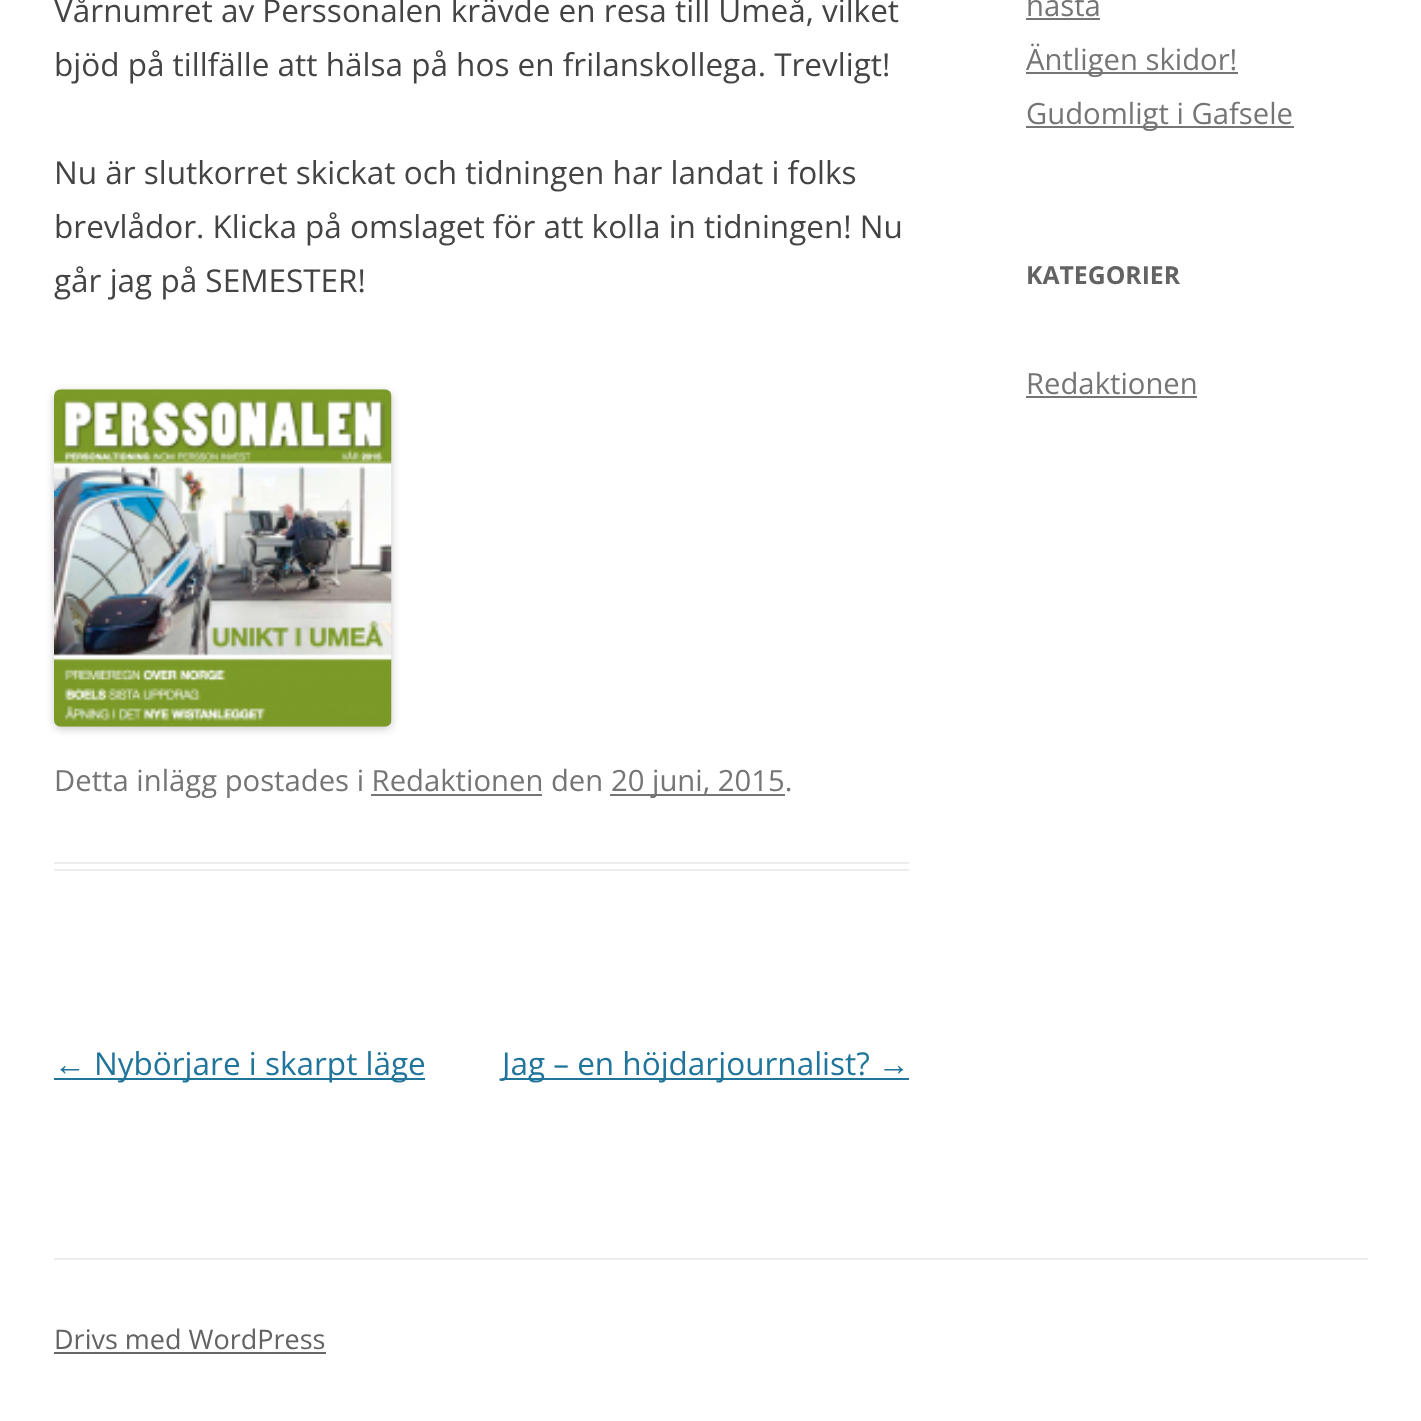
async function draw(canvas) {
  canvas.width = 1421;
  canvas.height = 1421;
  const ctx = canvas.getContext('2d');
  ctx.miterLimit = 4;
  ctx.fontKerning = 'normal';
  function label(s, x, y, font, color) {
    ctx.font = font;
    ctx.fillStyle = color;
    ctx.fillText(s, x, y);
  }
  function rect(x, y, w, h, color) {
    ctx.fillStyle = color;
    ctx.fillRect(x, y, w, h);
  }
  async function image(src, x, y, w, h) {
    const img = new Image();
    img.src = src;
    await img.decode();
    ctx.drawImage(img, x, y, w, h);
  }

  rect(0, 0, 1421, 1421, '#fff');
  rect(54, 862, 855, 2, '#ededed');
  rect(54, 869, 855, 2, '#ededed');
  label('Vårnumret av Perssonalen krävde en resa till Umeå, vilket', 54, 22, '31.5px Open Sans', '#444');
  label('bjöd på tillfälle att hälsa på hos en frilanskollega. Trevligt!', 54, 76, '31.5px Open Sans', '#444');
  label('Nu är slutkorret skickat och tidningen har landat i folks', 54, 184, '31.5px Open Sans', '#444');
  label('brevlådor. Klicka på omslaget för att kolla in tidningen! Nu', 54, 238, '31.5px Open Sans', '#444');
  label('går jag på SEMESTER!', 54, 292, '31.5px Open Sans', '#444');
  ctx.fillStyle = '#00000033';
  ctx.filter = 'blur(4.5px)';
  ctx.beginPath();
  ctx.roundRect(54, 392, 338, 337, 7);
  ctx.fill();
  ctx.filter = 'none';
  await image('assets/img1.png', 54, 389, 338, 338);
  label('Detta inlägg postades i Redaktionen den', 54, 791, '29.25px Open Sans', '#757575');
  rect(610, 794, 175, 2, '#757575');
  label('20 juni, 2015.', 611, 791, '29.25px Open Sans', '#757575');
  rect(371, 794, 171, 2, '#757575');
  label('←', 54, 1075, '31.5px Liberation Sans', '#21759b');
  rect(54, 1078, 371, 2, '#21759b');
  label('Nybörjare i skarpt läge', 94, 1075, '31.5px Open Sans', '#21759b');
  rect(502, 1078, 407, 2, '#21759b');
  label('Jag – en höjdarjournalist?', 502, 1075, '31.5px Open Sans', '#21759b');
  label('→', 878, 1075, '31.5px Liberation Sans', '#21759b');
  label('hasta', 1026, 16, '29.25px Open Sans', '#757575');
  rect(1026, 18, 74, 2, '#757575');
  rect(1026, 72, 212, 2, '#757575');
  label('Äntligen skidor!', 1026, 70, '29.25px Open Sans', '#757575');
  rect(1026, 126, 268, 2, '#757575');
  label('Gudomligt i Gafsele', 1026, 124, '29.25px Open Sans', '#757575');
  label('KATEGORIER', 1026, 284, 'bold 24.75px Open Sans', '#636363');
  label('Redaktionen', 1026, 394, '29.25px Open Sans', '#757575');
  rect(1026, 396, 171, 2, '#757575');
  rect(54, 1258, 1314, 2, '#ededed');
  label('Drivs med WordPress', 54, 1349, '27px Open Sans', '#636363');
  rect(54, 1352, 272, 2, '#686868');
}

draw(document.querySelector('canvas'));
